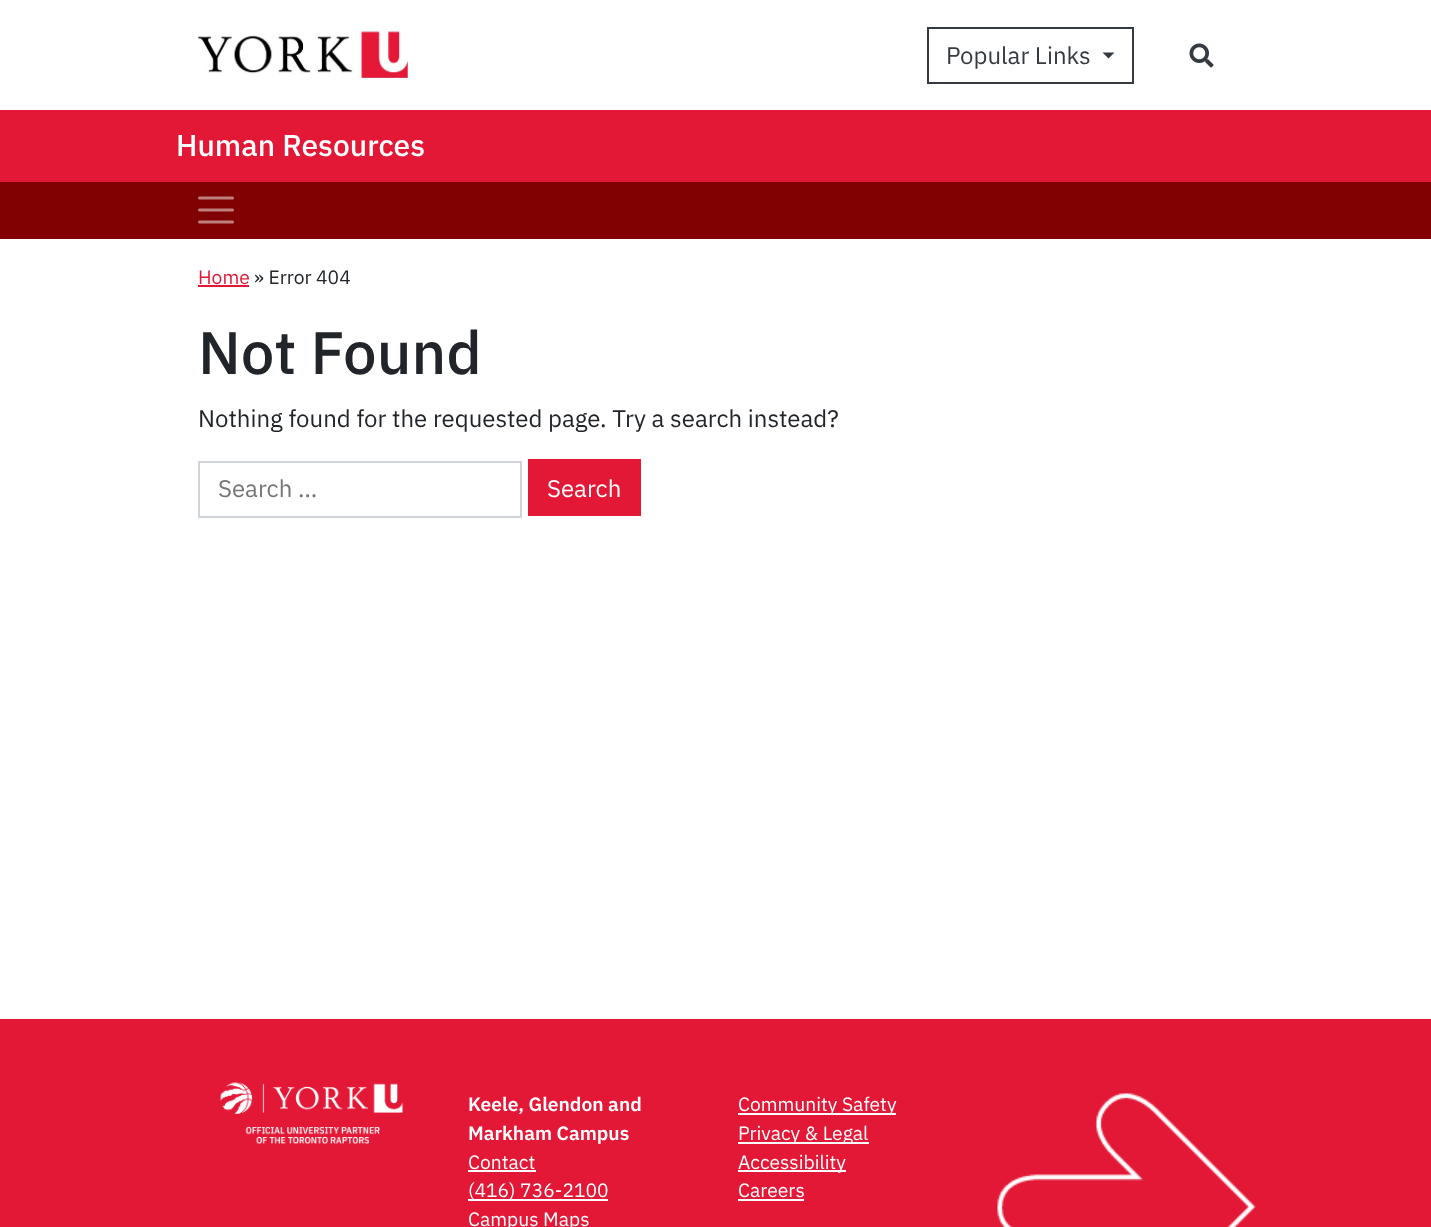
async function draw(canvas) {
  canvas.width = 1431;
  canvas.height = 1227;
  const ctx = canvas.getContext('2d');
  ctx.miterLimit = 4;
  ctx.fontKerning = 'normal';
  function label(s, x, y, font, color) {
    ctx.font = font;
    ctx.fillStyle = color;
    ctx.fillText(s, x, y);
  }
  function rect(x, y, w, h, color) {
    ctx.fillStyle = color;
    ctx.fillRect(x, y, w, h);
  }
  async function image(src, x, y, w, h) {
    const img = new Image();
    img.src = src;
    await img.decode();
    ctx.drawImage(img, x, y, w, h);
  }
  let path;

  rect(0, 0, 1431, 1227, '#fff');
  await image('assets/img1.png', 198, 31, 210, 47);
  ctx.strokeStyle = '#343a40';
  ctx.lineWidth = 2;
  ctx.strokeRect(928, 28, 205, 55);
  label('Popular Links', 946, 64, '24px IBM Plex Sans', '#343a40');
  path = new Path2D('M1102.5 52.5H1114.5L1108.5 58.5Z');
  ctx.fill(path);
  await image('assets/img2.png', 1189, 43, 25, 25);
  rect(0, 110, 1431, 72, '#e31837');
  label('Human Resources', 176, 156, '500 30px IBM Plex Sans', '#fff');
  rect(0, 182, 1431, 57, '#810001');
  path = new Path2D('M199.5 198H232.5M199.5 210H232.5M199.5 222H232.5');
  ctx.strokeStyle = '#c08080';
  ctx.lineWidth = 3;
  ctx.lineCap = 'round';
  ctx.stroke(path);
  label('Home', 198, 284, '19.25px IBM Plex Sans', '#e31837');
  rect(198, 285, 51, 2, '#e31837');
  label('» Error 404', 254, 284, '19.25px IBM Plex Sans', '#212529');
  label('Not Found', 198, 374, '500 60px IBM Plex Sans', '#212529');
  label('Nothing found for the requested page. Try a search instead?', 198, 427, '24px IBM Plex Sans', '#212529');
  ctx.strokeStyle = '#ced4da';
  ctx.lineWidth = 2;
  ctx.strokeRect(199, 462, 322, 55);
  label('Search …', 218, 497, '24px IBM Plex Sans', '#757575');
  rect(528, 459, 113, 57, '#e31837');
  label('Search', 547, 497, '24px IBM Plex Sans', '#fff');
  rect(0, 1019, 1431, 208, '#e31837');
  await image('assets/img3.png', 997, 1093, 259, 134);
  await image('assets/img4.png', 220, 1082, 184, 63);
  label('Keele, Glendon and', 468, 1111, '600 19.25px IBM Plex Sans', '#fff');
  label('Markham Campus', 468, 1140, '600 19.25px IBM Plex Sans', '#fff');
  label('Contact', 468, 1169, '19.25px IBM Plex Sans', '#fff');
  rect(468, 1170, 68, 2, '#fff');
  rect(468, 1199, 140, 2, '#fff');
  label('(416) 736-2100', 468, 1197, '19.25px IBM Plex Sans', '#fff');
  label('Campus Maps', 468, 1226, '19.25px IBM Plex Sans', '#fff');
  rect(738, 1113, 158, 2, '#fff');
  label('Community Safety', 738, 1111, '19.25px IBM Plex Sans', '#fff');
  rect(738, 1142, 131, 2, '#fff');
  label('Privacy & Legal', 738, 1140, '19.25px IBM Plex Sans', '#fff');
  rect(738, 1170, 108, 2, '#fff');
  label('Accessibility', 738, 1169, '19.25px IBM Plex Sans', '#fff');
  label('Careers', 738, 1197, '19.25px IBM Plex Sans', '#fff');
  rect(738, 1199, 66, 2, '#fff');
}

draw(document.querySelector('canvas'));
